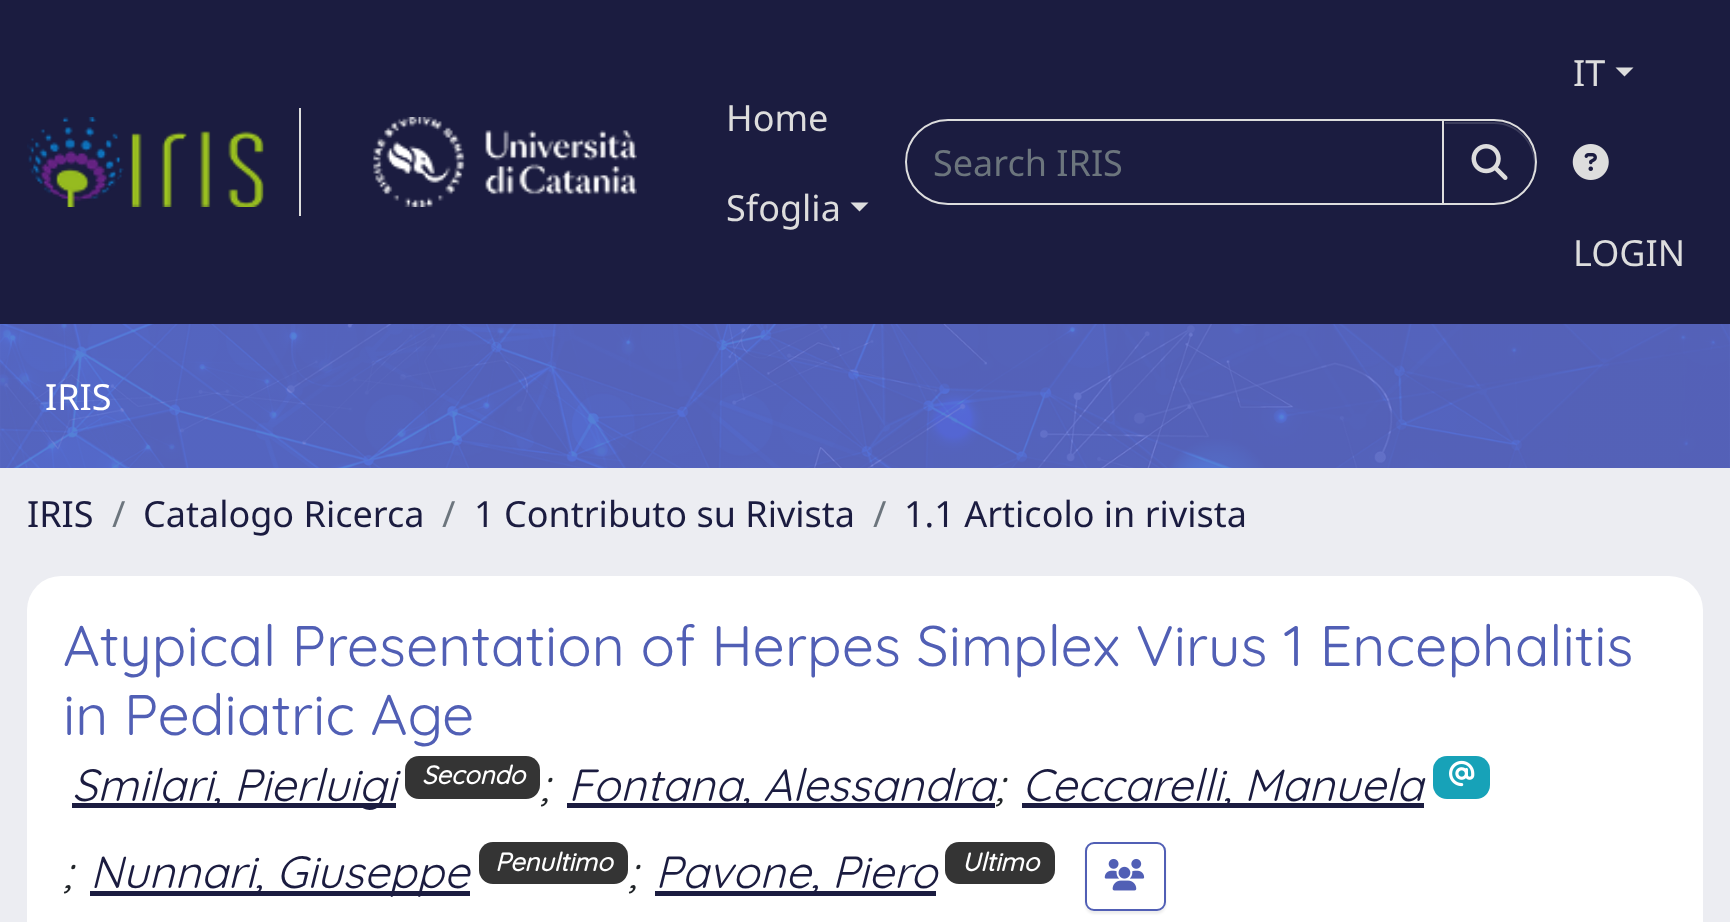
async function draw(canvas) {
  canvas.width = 1730;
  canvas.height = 922;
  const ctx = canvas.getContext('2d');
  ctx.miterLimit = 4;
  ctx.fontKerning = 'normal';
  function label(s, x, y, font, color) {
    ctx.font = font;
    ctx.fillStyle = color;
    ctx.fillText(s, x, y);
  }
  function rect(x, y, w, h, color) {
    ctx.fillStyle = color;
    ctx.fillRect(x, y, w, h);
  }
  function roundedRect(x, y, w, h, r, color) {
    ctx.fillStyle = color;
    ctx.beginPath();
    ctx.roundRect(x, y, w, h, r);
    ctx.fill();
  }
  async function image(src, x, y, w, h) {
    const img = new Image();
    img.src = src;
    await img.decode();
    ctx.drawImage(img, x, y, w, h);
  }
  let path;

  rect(0, 0, 1730, 922, '#ecedf2');
  rect(0, 0, 1730, 324, '#1b1c40');
  rect(299, 108, 2, 108, '#ddd');
  await image('assets/img1.png', 27, 117, 237, 90);
  await image('assets/img2.png', 373, 117, 264, 90);
  label('Home', 726, 131, '36px Noto Sans', '#ddd');
  label('Sfoglia', 726, 221, '36px Noto Sans', '#ddd');
  path = new Path2D('M850.5 202.5H868.5L859.5 211.5Z');
  ctx.fill(path);
  ctx.beginPath();
  ctx.roundRect(906, 120, 538, 84, [42, 0, 0, 42]);
  ctx.strokeStyle = '#ddd';
  ctx.lineWidth = 2;
  ctx.stroke();
  label('Search IRIS', 933, 176, '36px Noto Sans', '#6c757d');
  ctx.fillStyle = '#00000012';
  ctx.filter = 'blur(1px)';
  ctx.beginPath();
  ctx.roundRect(1442, 122, 95, 85, 42.5);
  ctx.fill();
  ctx.filter = 'none';
  ctx.fillStyle = '#1b1c40';
  ctx.beginPath();
  ctx.roundRect(1442, 119, 95, 86, [0, 43, 43, 0]);
  ctx.fill();
  ctx.fillStyle = '#3d3e5d';
  path = new Path2D('M1445 122V124H1494C1516 124 1534 142 1534 164C1534 170 1533 177 1530 182C1545 156 1525 122 1494 122Z');
  ctx.fill(path);
  ctx.beginPath();
  ctx.roundRect(1443, 120, 93, 84, [0, 42, 42, 0]);
  ctx.stroke();
  await image('assets/img3.png', 1471, 144, 37, 36);
  label('IT', 1573, 86, '36px Noto Sans', '#ddd');
  path = new Path2D('M1615.5 67.5H1633.5L1624.5 76.5Z');
  ctx.fill(path);
  await image('assets/img4.png', 1572, 144, 37, 36);
  label('LOGIN', 1573, 266, '36px Noto Sans', '#ddd');
  await image('assets/img5.png', 0, 324, 1730, 144);
  label('IRIS', 45, 410, '36px Noto Sans', '#fff');
  label('IRIS', 27, 527, '36px Noto Sans', '#1b1c40');
  label('/', 112, 527, '36px Noto Sans', '#6c757d');
  label('Catalogo Ricerca', 143, 527, '36px Noto Sans', '#1b1c40');
  label('/', 442, 527, '36px Noto Sans', '#6c757d');
  label('1 Contributo su Rivista', 474, 527, '36px Noto Sans', '#1b1c40');
  label('/', 873, 527, '36px Noto Sans', '#6c757d');
  label('1.1 Articolo in rivista', 904, 527, '36px Noto Sans', '#1b1c40');
  roundedRect(27, 576, 1676, 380, 34, '#fff');
  label('Atypical Presentation of Herpes Simplex Virus 1 Encephalitis', 63, 666, '57.2px Quicksand', '#515fb5');
  label('in Pediatric Age', 63, 735, '57.2px Quicksand', '#515fb5');
  rect(72, 803, 324, 5, '#1b1c40');
  label('Smilari, Pierluigi', 72, 801, 'italic 45px Quicksand', '#1b1c40');
  roundedRect(405, 756, 135, 43, 14, '#343434');
  label('Secondo', 422, 784, 'italic bold 25.5px Quicksand', '#fff');
  label(';', 540, 801, 'italic 45px Quicksand', '#212529');
  rect(1022, 803, 402, 5, '#1b1c40');
  label('Ceccarelli, Manuela', 1022, 801, 'italic 45px Quicksand', '#1b1c40');
  roundedRect(1433, 756, 57, 43, 14, '#17a2b8');
  await image('assets/img6.png', 1449, 760, 26, 27);
  label(';', 63, 888, 'italic 45px Quicksand', '#212529');
  rect(567, 803, 428, 5, '#1b1c40');
  label('Fontana, Alessandra', 568, 801, 'italic 45px Quicksand', '#1b1c40');
  label(';', 995, 801, 'italic 45px Quicksand', '#212529');
  rect(90, 891, 380, 5, '#1b1c40');
  label('Nunnari, Giuseppe', 90, 888, 'italic 45px Quicksand', '#1b1c40');
  roundedRect(479, 842, 149, 42, 14, '#343434');
  label('Penultimo', 495, 871, 'italic bold 25.5px Quicksand', '#fff');
  label(';', 628, 888, 'italic 45px Quicksand', '#212529');
  rect(655, 891, 281, 5, '#1b1c40');
  label('Pavone, Piero', 655, 888, 'italic 45px Quicksand', '#1b1c40');
  roundedRect(945, 842, 110, 42, 14, '#343434');
  label('Ultimo', 962, 871, 'italic bold 25.5px Quicksand', '#fff');
  ctx.save();
  path = new Path2D('M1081 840H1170V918H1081ZM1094 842H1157C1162 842 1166 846 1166 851V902C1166 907 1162 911 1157 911H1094C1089 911 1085 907 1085 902V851C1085 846 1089 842 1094 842Z');
  ctx.clip(path, 'evenodd');
  ctx.fillStyle = '#00000012';
  ctx.filter = 'blur(1px)';
  ctx.beginPath();
  ctx.roundRect(1085, 844, 81, 70, 9);
  ctx.fill();
  ctx.filter = 'none';
  ctx.restore();
  ctx.beginPath();
  ctx.roundRect(1086, 843, 79, 67, 8);
  ctx.strokeStyle = '#515fb5';
  ctx.stroke();
  await image('assets/img7.png', 1104, 858, 41, 33);
}

draw(document.querySelector('canvas'));
